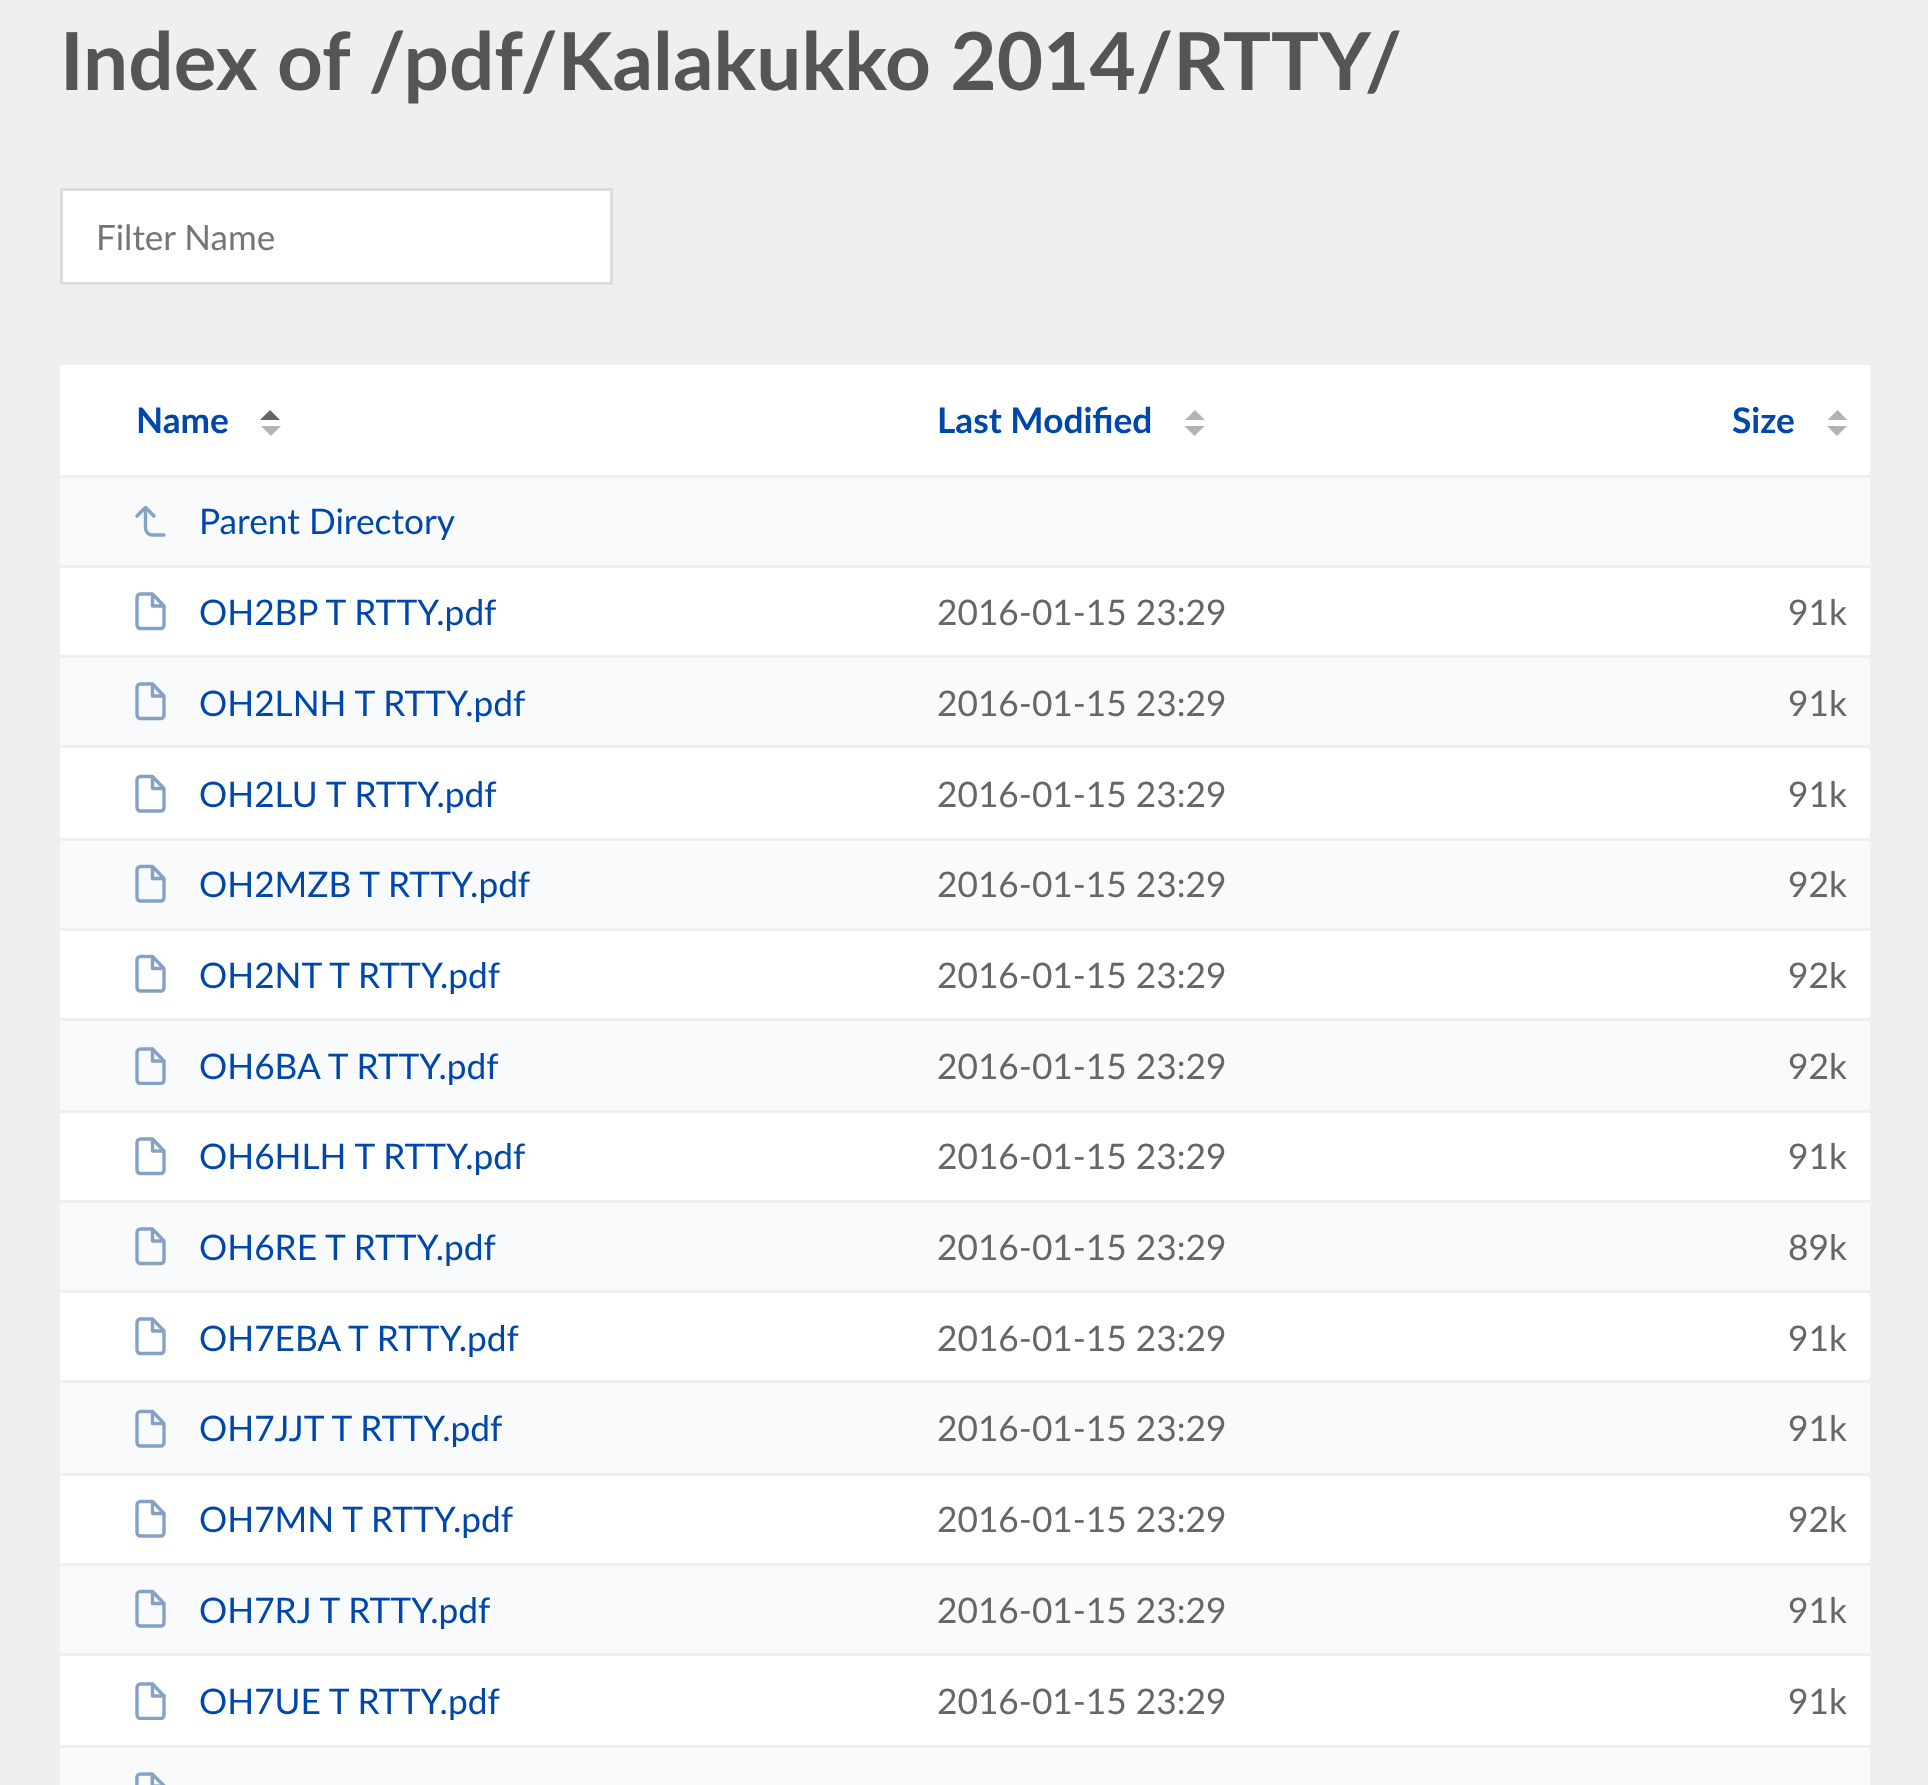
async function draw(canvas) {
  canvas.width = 1928;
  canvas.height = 1785;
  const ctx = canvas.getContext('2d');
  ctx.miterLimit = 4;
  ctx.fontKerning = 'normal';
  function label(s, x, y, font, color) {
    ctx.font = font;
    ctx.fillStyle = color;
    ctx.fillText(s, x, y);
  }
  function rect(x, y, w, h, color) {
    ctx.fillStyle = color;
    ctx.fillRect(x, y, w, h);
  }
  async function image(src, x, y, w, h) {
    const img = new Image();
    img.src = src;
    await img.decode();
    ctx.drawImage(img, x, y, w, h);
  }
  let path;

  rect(0, 0, 1928, 1785, '#edeff0');
  label('Index of /pdf/Kalakukko 2014/RTTY/', 60, 90, 'bold 80px Lato', '#555');
  ctx.fillStyle = '#fff';
  ctx.beginPath();
  ctx.rect(61.5, 189.5, 550, 94);
  ctx.fill();
  ctx.strokeStyle = '#ddd';
  ctx.lineWidth = 3;
  ctx.stroke();
  label('Filter Name', 96, 250, '35px Lato', '#757575');
  rect(60, 365, 1810, 1380, '#fff');
  label('Name', 136, 433, 'bold 35.25px Lato', '#0047ab');
  ctx.fillStyle = '#666';
  path = new Path2D('M280 420H260L270 410Z');
  ctx.fill(path);
  ctx.fillStyle = '#b3b3b3';
  path = new Path2D('M261 426H281L271 436Z');
  ctx.fill(path);
  label('Last Modified', 937, 433, 'bold 35.25px Lato', '#0047ab');
  ctx.fillStyle = '#b3b3b3';
  path = new Path2D('M1205 420H1185L1195 410ZM1184.5 426H1204.5L1194.5 436Z');
  ctx.fill(path);
  label('Size', 1732, 433, 'bold 35.25px Lato', '#0047ab');
  ctx.fillStyle = '#b3b3b3';
  path = new Path2D('M1847.5 420H1827.5L1837.5 410ZM1827 426H1847L1837 436Z');
  ctx.fill(path);
  rect(60, 478, 1810, 87, '#f8fafb');
  rect(60, 475, 1810, 3, '#edeff0');
  rect(60, 565, 1810, 3, '#edeff0');
  path = new Path2D('M154 516L145.5 507.5L137 516M164 535H152.5C148.5 535 145.5 532 145.5 528V507.5');
  ctx.strokeStyle = '#86a1c6';
  ctx.lineWidth = 3.4;
  ctx.lineCap = 'round';
  ctx.lineJoin = 'round';
  ctx.stroke(path);
  label('Parent Directory', 199, 534, '35.25px Lato', '#0047ab');
  path = new Path2D('M152.5 594H140.5C138.5 594 137 595.5 137 597.5V625C137 627 138.5 628.5 140.5 628.5H161C162.5 628.5 164 627 164 625V606ZM152.5 594V606H164');
  ctx.stroke(path);
  label('OH2BP T RTTY.pdf', 199, 625, '35.25px Lato', '#0047ab');
  label('2016-01-15 23:29', 937, 625, '35.25px Lato', '#666');
  label('91k', 1788, 625, '35.25px Lato', '#666');
  rect(60, 658, 1810, 87, '#f8fafb');
  rect(60, 655, 1810, 3, '#edeff0');
  rect(60, 745, 1810, 3, '#edeff0');
  path = new Path2D('M152.5 684H140.5C138.5 684 137 685.5 137 687.5V715C137 717 138.5 718.5 140.5 718.5H161C162.5 718.5 164 717 164 715V696ZM152.5 684V696H164');
  ctx.stroke(path);
  label('OH2LNH T RTTY.pdf', 199, 716, '35.25px Lato', '#0047ab');
  label('2016-01-15 23:29', 937, 716, '35.25px Lato', '#666');
  label('91k', 1788, 716, '35.25px Lato', '#666');
  path = new Path2D('M152.5 776.5H140.5C138.5 776.5 137 778 137 780V807.5C137 809.5 138.5 811 140.5 811H161C162.5 811 164 809.5 164 807.5V788.5ZM152.5 776.5V788.5H164');
  ctx.stroke(path);
  label('OH2LU T RTTY.pdf', 199, 807, '35.25px Lato', '#0047ab');
  label('2016-01-15 23:29', 937, 807, '35.25px Lato', '#666');
  label('91k', 1788, 807, '35.25px Lato', '#666');
  rect(60, 841, 1810, 87, '#f8fafb');
  rect(60, 838, 1810, 3, '#edeff0');
  rect(60, 928, 1810, 3, '#edeff0');
  path = new Path2D('M152.5 866.5H140.5C138.5 866.5 137 868 137 870V897.5C137 899.5 138.5 901 140.5 901H161C162.5 901 164 899.5 164 897.5V878.5ZM152.5 866.5V878.5H164');
  ctx.stroke(path);
  label('OH2MZB T RTTY.pdf', 199, 897, '35.25px Lato', '#0047ab');
  label('2016-01-15 23:29', 937, 897, '35.25px Lato', '#666');
  label('92k', 1788, 897, '35.25px Lato', '#666');
  path = new Path2D('M152.5 956.5H140.5C138.5 956.5 137 958 137 960V987.5C137 989.5 138.5 991 140.5 991H161C162.5 991 164 989.5 164 987.5V968.5ZM152.5 956.5V968.5H164');
  ctx.stroke(path);
  label('OH2NT T RTTY.pdf', 199, 988, '35.25px Lato', '#0047ab');
  label('2016-01-15 23:29', 937, 988, '35.25px Lato', '#666');
  label('92k', 1788, 988, '35.25px Lato', '#666');
  rect(60, 1021, 1810, 89, '#f8fafb');
  rect(60, 1018, 1810, 3, '#edeff0');
  rect(60, 1110, 1810, 3, '#edeff0');
  ctx.save();
  ctx.beginPath();
  ctx.rect(130, 1045, 43, 40);
  ctx.clip();
  path = new Path2D('M152.5 1049H140.5C138.5 1049 137 1050.5 137 1052.5V1080C137 1082 138.5 1083.5 140.5 1083.5H161C162.5 1083.5 164 1082 164 1080V1061Z');
  ctx.stroke(path);
  ctx.restore();
  path = new Path2D('M152.5 1049V1061H164');
  ctx.stroke(path);
  ctx.save();
  ctx.beginPath();
  ctx.rect(130, 1043, 763, 42);
  ctx.clip();
  label('OH6BA T RTTY.pdf', 199, 1079, '35.25px Lato', '#0047ab');
  ctx.restore();
  label('2016-01-15 23:29', 937, 1079, '35.25px Lato', '#666');
  label('92k', 1788, 1079, '35.25px Lato', '#666');
  path = new Path2D('M152.5 1139H140.5C138.5 1139 137 1140.5 137 1142.5V1170C137 1172 138.5 1173.5 140.5 1173.5H161C162.5 1173.5 164 1172 164 1170V1151ZM152.5 1139V1151H164');
  ctx.stroke(path);
  label('OH6HLH T RTTY.pdf', 199, 1169, '35.25px Lato', '#0047ab');
  label('2016-01-15 23:29', 937, 1169, '35.25px Lato', '#666');
  label('91k', 1788, 1169, '35.25px Lato', '#666');
  rect(60, 1203, 1810, 87, '#f8fafb');
  rect(60, 1200, 1810, 3, '#edeff0');
  rect(60, 1290, 1810, 3, '#edeff0');
  path = new Path2D('M152.5 1229H140.5C138.5 1229 137 1230.5 137 1232.5V1260C137 1262 138.5 1263.5 140.5 1263.5H161C162.5 1263.5 164 1262 164 1260V1241ZM152.5 1229V1241H164');
  ctx.stroke(path);
  label('OH6RE T RTTY.pdf', 199, 1260, '35.25px Lato', '#0047ab');
  label('2016-01-15 23:29', 937, 1260, '35.25px Lato', '#666');
  label('89k', 1788, 1260, '35.25px Lato', '#666');
  path = new Path2D('M152.5 1319H140.5C138.5 1319 137 1320.5 137 1322.5V1350C137 1352 138.5 1353.5 140.5 1353.5H161C162.5 1353.5 164 1352 164 1350V1331ZM152.5 1319V1331H164');
  ctx.stroke(path);
  label('OH7EBA T RTTY.pdf', 199, 1351, '35.25px Lato', '#0047ab');
  label('2016-01-15 23:29', 937, 1351, '35.25px Lato', '#666');
  label('91k', 1788, 1351, '35.25px Lato', '#666');
  rect(60, 1383, 1810, 90, '#f8fafb');
  rect(60, 1380, 1810, 3, '#edeff0');
  rect(60, 1473, 1810, 3, '#edeff0');
  path = new Path2D('M152.5 1411.5H140.5C138.5 1411.5 137 1413 137 1415V1442.5C137 1444.5 138.5 1446 140.5 1446H161C162.5 1446 164 1444.5 164 1442.5V1423.5ZM152.5 1411.5V1423.5H164');
  ctx.stroke(path);
  label('OH7JJT T RTTY.pdf', 199, 1441, '35.25px Lato', '#0047ab');
  label('2016-01-15 23:29', 937, 1441, '35.25px Lato', '#666');
  label('91k', 1788, 1441, '35.25px Lato', '#666');
  path = new Path2D('M152.5 1501.5H140.5C138.5 1501.5 137 1503 137 1505V1532.5C137 1534.5 138.5 1536 140.5 1536H161C162.5 1536 164 1534.5 164 1532.5V1513.5ZM152.5 1501.5V1513.5H164');
  ctx.stroke(path);
  label('OH7MN T RTTY.pdf', 199, 1532, '35.25px Lato', '#0047ab');
  label('2016-01-15 23:29', 937, 1532, '35.25px Lato', '#666');
  label('92k', 1788, 1532, '35.25px Lato', '#666');
  rect(60, 1566, 1810, 87, '#f8fafb');
  rect(60, 1563, 1810, 3, '#edeff0');
  rect(60, 1653, 1810, 3, '#edeff0');
  path = new Path2D('M152.5 1591.5H140.5C138.5 1591.5 137 1593 137 1595V1622.5C137 1624.5 138.5 1626 140.5 1626H161C162.5 1626 164 1624.5 164 1622.5V1603.5ZM152.5 1591.5V1603.5H164');
  ctx.stroke(path);
  label('OH7RJ T RTTY.pdf', 199, 1623, '35.25px Lato', '#0047ab');
  label('2016-01-15 23:29', 937, 1623, '35.25px Lato', '#666');
  label('91k', 1788, 1623, '35.25px Lato', '#666');
  ctx.save();
  ctx.beginPath();
  ctx.rect(130, 1680, 43, 40);
  ctx.clip();
  path = new Path2D('M152.5 1684H140.5C138.5 1684 137 1685.5 137 1687.5V1715C137 1717 138.5 1718.5 140.5 1718.5H161C162.5 1718.5 164 1717 164 1715V1696Z');
  ctx.stroke(path);
  ctx.restore();
  path = new Path2D('M152.5 1684V1696H164');
  ctx.stroke(path);
  ctx.save();
  ctx.beginPath();
  ctx.rect(130, 1678, 763, 42);
  ctx.clip();
  label('OH7UE T RTTY.pdf', 199, 1714, '35.25px Lato', '#0047ab');
  ctx.restore();
  label('2016-01-15 23:29', 937, 1714, '35.25px Lato', '#666');
  label('91k', 1788, 1714, '35.25px Lato', '#666');
  rect(60, 1748, 1810, 37, '#f8fafb');
  await image('assets/img1.png', 135, 1772, 31, 13);
}

draw(document.querySelector('canvas'));
